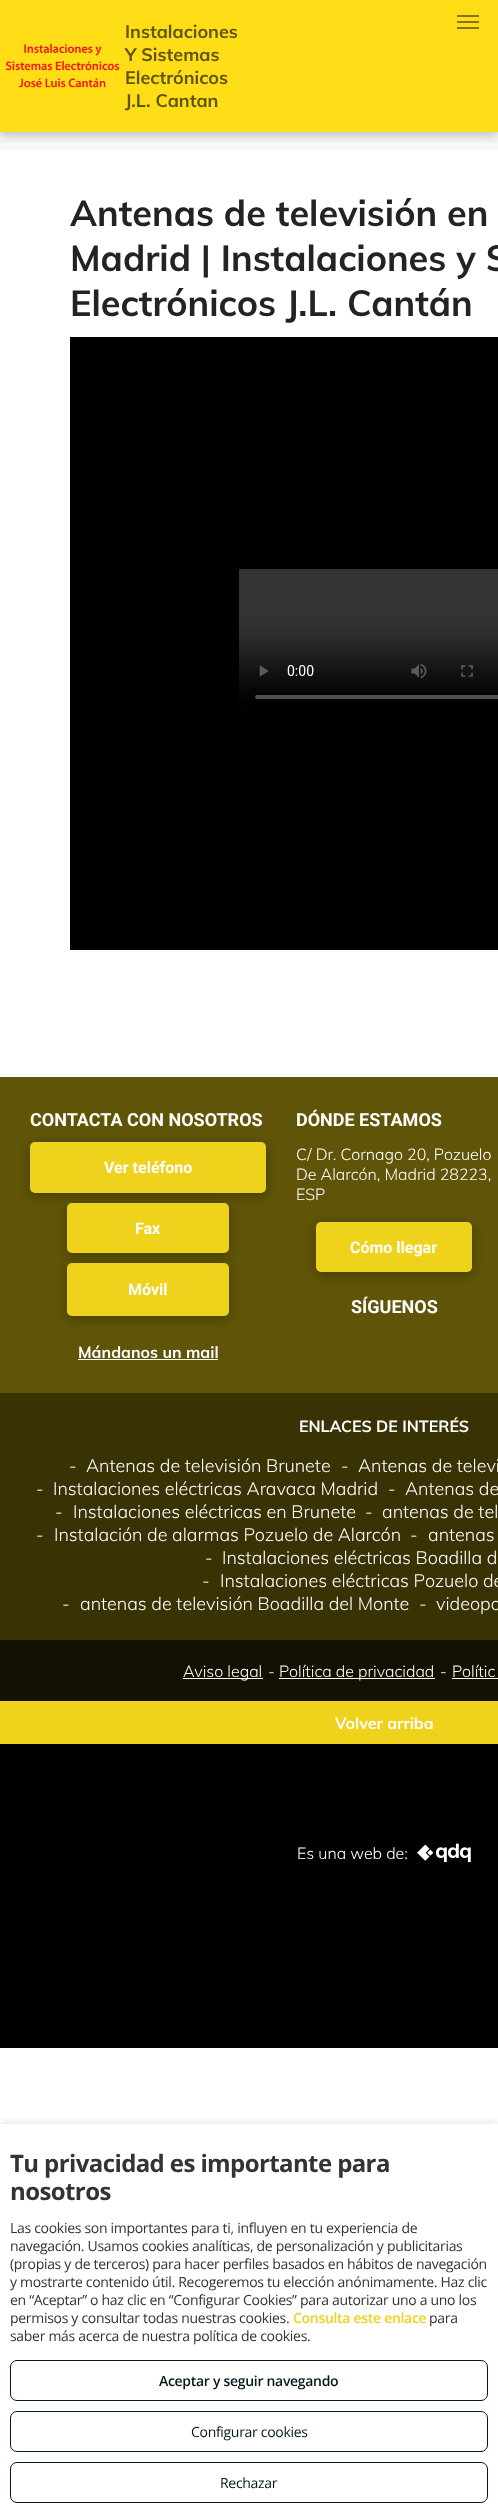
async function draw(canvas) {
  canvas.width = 498;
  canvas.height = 2518;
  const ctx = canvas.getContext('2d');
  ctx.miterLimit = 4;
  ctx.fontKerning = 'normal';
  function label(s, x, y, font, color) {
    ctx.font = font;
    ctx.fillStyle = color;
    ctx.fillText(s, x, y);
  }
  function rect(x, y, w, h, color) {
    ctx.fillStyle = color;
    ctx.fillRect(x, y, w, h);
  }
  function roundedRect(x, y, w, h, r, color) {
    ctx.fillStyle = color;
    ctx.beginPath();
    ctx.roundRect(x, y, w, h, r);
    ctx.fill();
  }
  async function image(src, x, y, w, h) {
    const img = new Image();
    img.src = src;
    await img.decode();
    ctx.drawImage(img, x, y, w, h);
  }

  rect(0, 0, 498, 2518, '#fff');
  rect(0, 0, 498, 132, '#ffdd17');
  rect(0, 132, 498, 18, '#f7f7f7');
  ctx.save();
  ctx.beginPath();
  ctx.rect(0, 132, 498, 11);
  ctx.clip();
  ctx.fillStyle = '#00000040';
  ctx.filter = 'blur(5.5px)';
  ctx.beginPath();
  ctx.rect(0, 3, 498, 132);
  ctx.fill();
  ctx.filter = 'none';
  ctx.restore();
  rect(457, 15, 22, 2, '#85750a');
  rect(457, 21, 22, 2, '#85750a');
  rect(457, 27, 22, 2, '#85750a');
  await image('assets/img1.png', 5, 43, 115, 45);
  label('Instalaciones', 125, 38, 'bold 18px Muli', '#5f5407');
  label('Y Sistemas', 125, 61, 'bold 18px Muli', '#5f5407');
  label('Electrónicos', 125, 84, 'bold 18px Muli', '#5f5407');
  label('J.L. Cantan', 125, 107, 'bold 18px Muli', '#5f5407');
  label('Antenas de televisión en', 70, 226, 'bold 36px Muli', '#232323');
  label('Madrid | Instalaciones y S', 70, 271, 'bold 36px Muli', '#232323');
  label('Electrónicos J.L. Cantán', 70, 316, 'bold 36px Muli', '#232323');
  await image('assets/img2.png', 70, 337, 428, 613);
  rect(0, 1077, 498, 316, '#5f5407');
  label('CONTACTA CON NOSOTROS', 30, 1126, 'bold 18px Roboto', '#fff');
  ctx.fillStyle = '#00000040';
  ctx.filter = 'blur(5.5px)';
  ctx.beginPath();
  ctx.roundRect(30, 1145, 236, 51, 5);
  ctx.fill();
  ctx.filter = 'none';
  roundedRect(30, 1142, 236, 51, 5, '#eed21b');
  label('Ver teléfono', 104, 1173, 'bold 16px Roboto', '#fff');
  ctx.fillStyle = '#00000040';
  ctx.filter = 'blur(5.5px)';
  ctx.beginPath();
  ctx.roundRect(67, 1206, 162, 50, 5);
  ctx.fill();
  ctx.filter = 'none';
  roundedRect(67, 1203, 162, 50, 5, '#eed21b');
  label('Fax', 135, 1234, 'bold 16px Roboto', '#fff');
  ctx.fillStyle = '#00000040';
  ctx.filter = 'blur(5.5px)';
  ctx.beginPath();
  ctx.roundRect(67, 1266, 162, 53, 5);
  ctx.fill();
  ctx.filter = 'none';
  roundedRect(67, 1263, 162, 53, 5, '#eed21b');
  label('Móvil', 128, 1295, 'bold 16px Roboto', '#fff');
  label('Mándanos un mail', 78, 1358, 'bold 16px Muli', '#fff');
  rect(78, 1359, 140, 1, '#fff');
  label('DÓNDE ESTAMOS', 296, 1126, 'bold 18px Roboto', '#fff');
  label('C/ Dr. Cornago 20, Pozuelo', 296, 1160, '300 16px Muli', '#fff');
  label('De Alarcón, Madrid 28223,', 296, 1180, '300 16px Muli', '#fff');
  label('ESP', 296, 1200, '300 16px Muli', '#fff');
  ctx.fillStyle = '#00000040';
  ctx.filter = 'blur(5.5px)';
  ctx.beginPath();
  ctx.roundRect(316, 1225, 156, 50, 5);
  ctx.fill();
  ctx.filter = 'none';
  roundedRect(316, 1222, 156, 50, 5, '#eed21b');
  label('Cómo llegar', 350, 1253, 'bold 16px Roboto', '#fff');
  label('SÍGUENOS', 351, 1313, 'bold 18px Roboto', '#fff');
  rect(0, 1393, 498, 247, '#393204');
  label('ENLACES DE INTERÉS', 299, 1432, 'bold 16px Muli', '#fff');
  label('-', 69, 1472, '300 18px Muli', '#fff');
  label('Antenas de televisión Brunete', 86, 1472, '300 18px Muli', '#fff');
  label('-', 341, 1472, '300 18px Muli', '#fff');
  label('Antenas de televi', 358, 1472, '300 18px Muli', '#fff');
  label('-', 36, 1495, '300 18px Muli', '#fff');
  label('Instalaciones eléctricas Aravaca Madrid', 53, 1495, '300 18px Muli', '#fff');
  label('-', 388, 1495, '300 18px Muli', '#fff');
  label('Antenas de', 405, 1495, '300 18px Muli', '#fff');
  label('-', 55, 1518, '300 18px Muli', '#fff');
  label('Instalaciones eléctricas en Brunete', 73, 1518, '300 18px Muli', '#fff');
  label('-', 365, 1518, '300 18px Muli', '#fff');
  label('antenas de tel', 382, 1518, '300 18px Muli', '#fff');
  label('-', 36, 1541, '300 18px Muli', '#fff');
  label('Instalación de alarmas Pozuelo de Alarcón', 54, 1541, '300 18px Muli', '#fff');
  label('-', 410, 1541, '300 18px Muli', '#fff');
  label('antenas', 428, 1541, '300 18px Muli', '#fff');
  label('-', 205, 1564, '300 18px Muli', '#fff');
  label('Instalaciones eléctricas Boadilla d', 222, 1564, '300 18px Muli', '#fff');
  label('-', 202, 1587, '300 18px Muli', '#fff');
  label('Instalaciones eléctricas Pozuelo de', 220, 1587, '300 18px Muli', '#fff');
  label('-', 62, 1610, '300 18px Muli', '#fff');
  label('antenas de televisión Boadilla del Monte', 80, 1610, '300 18px Muli', '#fff');
  label('-', 419, 1610, '300 18px Muli', '#fff');
  label('videopo', 436, 1610, '300 18px Muli', '#fff');
  rect(0, 1640, 498, 61, '#131101');
  rect(183, 1678, 80, 1, '#fff');
  label('Aviso legal', 183, 1677, '300 16px Muli', '#fff');
  label('-', 268, 1677, '300 16px Muli', '#fff');
  rect(279, 1678, 156, 1, '#fff');
  label('Política de privacidad', 279, 1677, '300 16px Muli', '#fff');
  label('-', 440, 1677, '300 16px Muli', '#fff');
  label('Polític', 452, 1677, '300 16px Muli', '#fff');
  rect(452, 1678, 46, 1, '#fff');
  rect(0, 1701, 498, 43, '#eed21b');
  label('Volver arriba', 335, 1729, 'bold 16px Muli', '#fff');
  rect(0, 1744, 498, 304, '#000');
  label('Es una web de:', 297, 1859, '300 16px Muli', '#fff');
  await image('assets/img3.png', 417, 1843, 54, 20);
  ctx.save();
  ctx.beginPath();
  ctx.rect(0, 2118, 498, 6);
  ctx.clip();
  ctx.fillStyle = '#0000001a';
  ctx.filter = 'blur(5px)';
  ctx.beginPath();
  ctx.rect(0, 2122, 498, 394);
  ctx.fill();
  ctx.filter = 'none';
  ctx.restore();
  ctx.letterSpacing = '-0.6px';
  label('Tu privacidad es importante para', 10, 2172, 'bold 24px Open Sans', '#333');
  label('nosotros', 10, 2200, 'bold 24px Open Sans', '#333');
  ctx.letterSpacing = '-0.3px';
  label('Las cookies son importantes para ti, influyen en tu experiencia de', 10, 2233, '14px Open Sans', '#333');
  label('navegación. Usamos cookies analíticas, de personalización y publicitarias', 10, 2251, '14px Open Sans', '#333');
  label('(propias y de terceros) para hacer perfiles basados en hábitos de navegación', 10, 2269, '14px Open Sans', '#333');
  label('y mostrarte contenido útil. Recogeremos tu elección anónimamente. Haz clic', 10, 2287, '14px Open Sans', '#333');
  label('en “Aceptar” o haz clic en “Configurar Cookies” para autorizar uno a uno los', 10, 2305, '14px Open Sans', '#333');
  label('permisos y consultar todas nuestras cookies.', 10, 2323, '14px Open Sans', '#333');
  label('Consulta este enlace', 293, 2323, '600 14px Open Sans', '#eed21b');
  label('para', 429, 2323, '14px Open Sans', '#333');
  label('saber más acerca de nuestra política de cookies.', 10, 2341, '14px Open Sans', '#333');
  ctx.beginPath();
  ctx.roundRect(10.5, 2360.5, 477, 40, 6.5);
  ctx.strokeStyle = '#03181e';
  ctx.stroke();
  label('Aceptar y seguir navegando', 159, 2386, '600 14px Open Sans', '#03181e');
  ctx.beginPath();
  ctx.roundRect(10.5, 2411.5, 477, 40, 6.5);
  ctx.stroke();
  label('Configurar cookies', 191, 2437, '14px Open Sans', '#03181e');
  ctx.beginPath();
  ctx.roundRect(10.5, 2462.5, 477, 40, 6.5);
  ctx.stroke();
  label('Rechazar', 220, 2488, '14px Open Sans', '#03181e');
}

draw(document.querySelector('canvas'));
